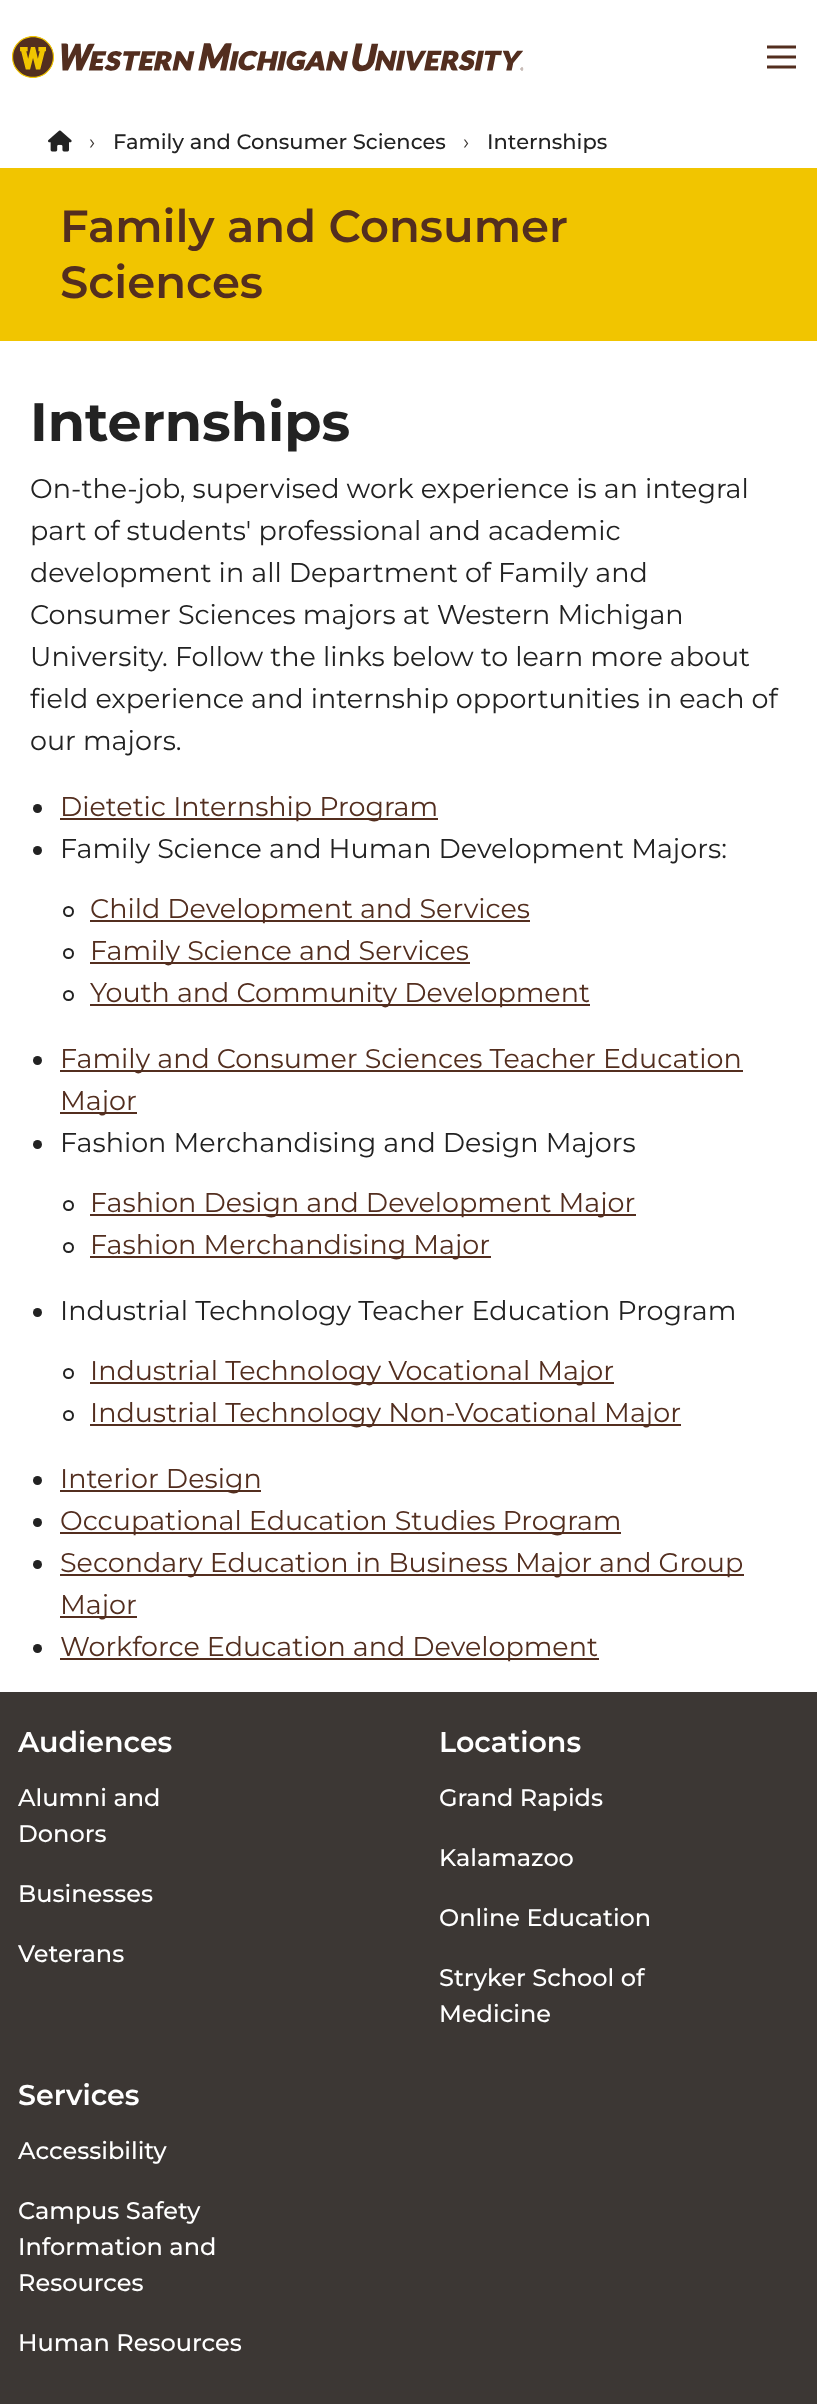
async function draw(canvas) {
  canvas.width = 817;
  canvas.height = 2404;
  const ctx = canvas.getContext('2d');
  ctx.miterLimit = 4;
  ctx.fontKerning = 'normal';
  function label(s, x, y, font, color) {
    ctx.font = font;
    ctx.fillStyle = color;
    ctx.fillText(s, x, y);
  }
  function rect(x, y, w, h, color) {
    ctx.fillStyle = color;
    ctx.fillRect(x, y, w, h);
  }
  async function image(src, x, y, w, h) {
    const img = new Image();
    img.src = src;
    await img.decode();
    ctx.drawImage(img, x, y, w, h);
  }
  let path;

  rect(0, 0, 817, 2404, '#fff');
  await image('assets/img1.png', 12, 36, 512, 42);
  path = new Path2D('M767 47H796M767 57H796M767 67H796');
  ctx.strokeStyle = '#532e1f';
  ctx.lineWidth = 2.9;
  ctx.stroke(path);
  await image('assets/img2.png', 48, 130, 24, 22);
  label('›', 89, 149, '21px Montserrat', '#3c3734');
  label('Family and Consumer Sciences', 113, 149, '500 21px Montserrat', '#222');
  label('›', 463, 149, '21px Montserrat', '#3c3734');
  label('Internships', 487, 149, '500 21px Montserrat', '#222');
  rect(0, 168, 817, 173, '#f1c500');
  label('Family and Consumer', 60, 242, '600 45px Montserrat', '#532e1f');
  label('Sciences', 60, 298, '600 45px Montserrat', '#532e1f');
  label('Internships', 30, 441, 'bold 54px Montserrat', '#222');
  label('On-the-job, supervised work experience is an integral', 30, 498, '27px Montserrat', '#222');
  label('part of students\' professional and academic', 30, 540, '27px Montserrat', '#222');
  label('development in all Department of Family and', 30, 582, '27px Montserrat', '#222');
  label('Consumer Sciences majors at Western Michigan', 30, 624, '27px Montserrat', '#222');
  label('University. Follow the links below to learn more about', 30, 666, '27px Montserrat', '#222');
  label('field experience and internship opportunities in each of', 30, 708, '27px Montserrat', '#222');
  label('our majors.', 30, 750, '27px Montserrat', '#222');
  ctx.beginPath();
  ctx.arc(37.5, 808.5, 4.5, 0, 2 * Math.PI);
  ctx.fill();
  rect(60, 818, 378, 2, '#532e1f');
  label('Dietetic Internship Program', 60, 816, '27px Montserrat', '#532e1f');
  ctx.fillStyle = '#222';
  ctx.beginPath();
  ctx.arc(37.5, 850.5, 4.5, 0, 2 * Math.PI);
  ctx.fill();
  label('Family Science and Human Development Majors:', 60, 858, '27px Montserrat', '#222');
  ctx.beginPath();
  ctx.arc(68.5, 911.5, 4.5, 0, 2 * Math.PI);
  ctx.strokeStyle = '#222';
  ctx.lineWidth = 2;
  ctx.stroke();
  rect(90, 920, 440, 2, '#532e1f');
  label('Child Development and Services', 90, 918, '27px Montserrat', '#532e1f');
  ctx.beginPath();
  ctx.arc(68.5, 953.5, 4.5, 0, 2 * Math.PI);
  ctx.stroke();
  rect(90, 962, 380, 2, '#532e1f');
  label('Family Science and Services', 90, 960, '27px Montserrat', '#532e1f');
  ctx.beginPath();
  ctx.arc(68.5, 995.5, 4.5, 0, 2 * Math.PI);
  ctx.stroke();
  rect(90, 1004, 500, 2, '#532e1f');
  label('Youth and Community Development', 90, 1002, '27px Montserrat', '#532e1f');
  ctx.fillStyle = '#222';
  ctx.beginPath();
  ctx.arc(37.5, 1060.5, 4.5, 0, 2 * Math.PI);
  ctx.fill();
  rect(60, 1070, 683, 2, '#532e1f');
  label('Family and Consumer Sciences Teacher Education', 60, 1068, '27px Montserrat', '#532e1f');
  rect(60, 1112, 77, 2, '#532e1f');
  label('Major', 60, 1110, '27px Montserrat', '#532e1f');
  ctx.fillStyle = '#222';
  ctx.beginPath();
  ctx.arc(37.5, 1144.5, 4.5, 0, 2 * Math.PI);
  ctx.fill();
  label('Fashion Merchandising and Design Majors', 60, 1152, '27px Montserrat', '#222');
  ctx.beginPath();
  ctx.arc(68.5, 1205.5, 4.5, 0, 2 * Math.PI);
  ctx.stroke();
  rect(90, 1214, 546, 2, '#532e1f');
  label('Fashion Design and Development Major', 90, 1212, '27px Montserrat', '#532e1f');
  ctx.beginPath();
  ctx.arc(68.5, 1247.5, 4.5, 0, 2 * Math.PI);
  ctx.stroke();
  rect(90, 1256, 401, 2, '#532e1f');
  label('Fashion Merchandising Major', 90, 1254, '27px Montserrat', '#532e1f');
  ctx.fillStyle = '#222';
  ctx.beginPath();
  ctx.arc(37.5, 1312.5, 4.5, 0, 2 * Math.PI);
  ctx.fill();
  label('Industrial Technology Teacher Education Program', 60, 1320, '27px Montserrat', '#222');
  ctx.beginPath();
  ctx.arc(68.5, 1373.5, 4.5, 0, 2 * Math.PI);
  ctx.stroke();
  rect(90, 1382, 524, 2, '#532e1f');
  label('Industrial Technology Vocational Major', 90, 1380, '27px Montserrat', '#532e1f');
  ctx.beginPath();
  ctx.arc(68.5, 1415.5, 4.5, 0, 2 * Math.PI);
  ctx.stroke();
  rect(90, 1424, 591, 2, '#532e1f');
  label('Industrial Technology Non-Vocational Major', 90, 1422, '27px Montserrat', '#532e1f');
  ctx.fillStyle = '#222';
  ctx.beginPath();
  ctx.arc(37.5, 1480.5, 4.5, 0, 2 * Math.PI);
  ctx.fill();
  rect(60, 1490, 201, 2, '#532e1f');
  label('Interior Design', 60, 1488, '27px Montserrat', '#532e1f');
  ctx.fillStyle = '#222';
  ctx.beginPath();
  ctx.arc(37.5, 1522.5, 4.5, 0, 2 * Math.PI);
  ctx.fill();
  rect(60, 1532, 561, 2, '#532e1f');
  label('Occupational Education Studies Program', 60, 1530, '27px Montserrat', '#532e1f');
  ctx.fillStyle = '#222';
  ctx.beginPath();
  ctx.arc(37.5, 1564.5, 4.5, 0, 2 * Math.PI);
  ctx.fill();
  rect(60, 1574, 684, 2, '#532e1f');
  label('Secondary Education in Business Major and Group', 60, 1572, '27px Montserrat', '#532e1f');
  rect(60, 1616, 77, 2, '#532e1f');
  label('Major', 60, 1614, '27px Montserrat', '#532e1f');
  ctx.fillStyle = '#222';
  ctx.beginPath();
  ctx.arc(37.5, 1648.5, 4.5, 0, 2 * Math.PI);
  ctx.fill();
  rect(60, 1658, 539, 2, '#532e1f');
  label('Workforce Education and Development', 60, 1656, '27px Montserrat', '#532e1f');
  rect(0, 1692, 817, 712, '#3c3734');
  label('Audiences', 18, 1752, '600 28.5px Montserrat', '#fff');
  label('Alumni and', 18, 1806, '500 24px Montserrat', '#fff');
  label('Donors', 18, 1842, '500 24px Montserrat', '#fff');
  label('Businesses', 18, 1902, '500 24px Montserrat', '#fff');
  label('Veterans', 18, 1962, '500 24px Montserrat', '#fff');
  label('Locations', 439, 1752, '600 28.5px Montserrat', '#fff');
  label('Grand Rapids', 439, 1806, '500 24px Montserrat', '#fff');
  label('Kalamazoo', 439, 1866, '500 24px Montserrat', '#fff');
  label('Online Education', 439, 1926, '500 24px Montserrat', '#fff');
  label('Stryker School of', 439, 1986, '500 24px Montserrat', '#fff');
  label('Medicine', 439, 2022, '500 24px Montserrat', '#fff');
  label('Services', 18, 2105, '600 28.5px Montserrat', '#fff');
  label('Accessibility', 18, 2159, '500 24px Montserrat', '#fff');
  label('Campus Safety', 18, 2219, '500 24px Montserrat', '#fff');
  label('Information and', 18, 2255, '500 24px Montserrat', '#fff');
  label('Resources', 18, 2291, '500 24px Montserrat', '#fff');
  label('Human Resources', 18, 2351, '500 24px Montserrat', '#fff');
}

draw(document.querySelector('canvas'));
